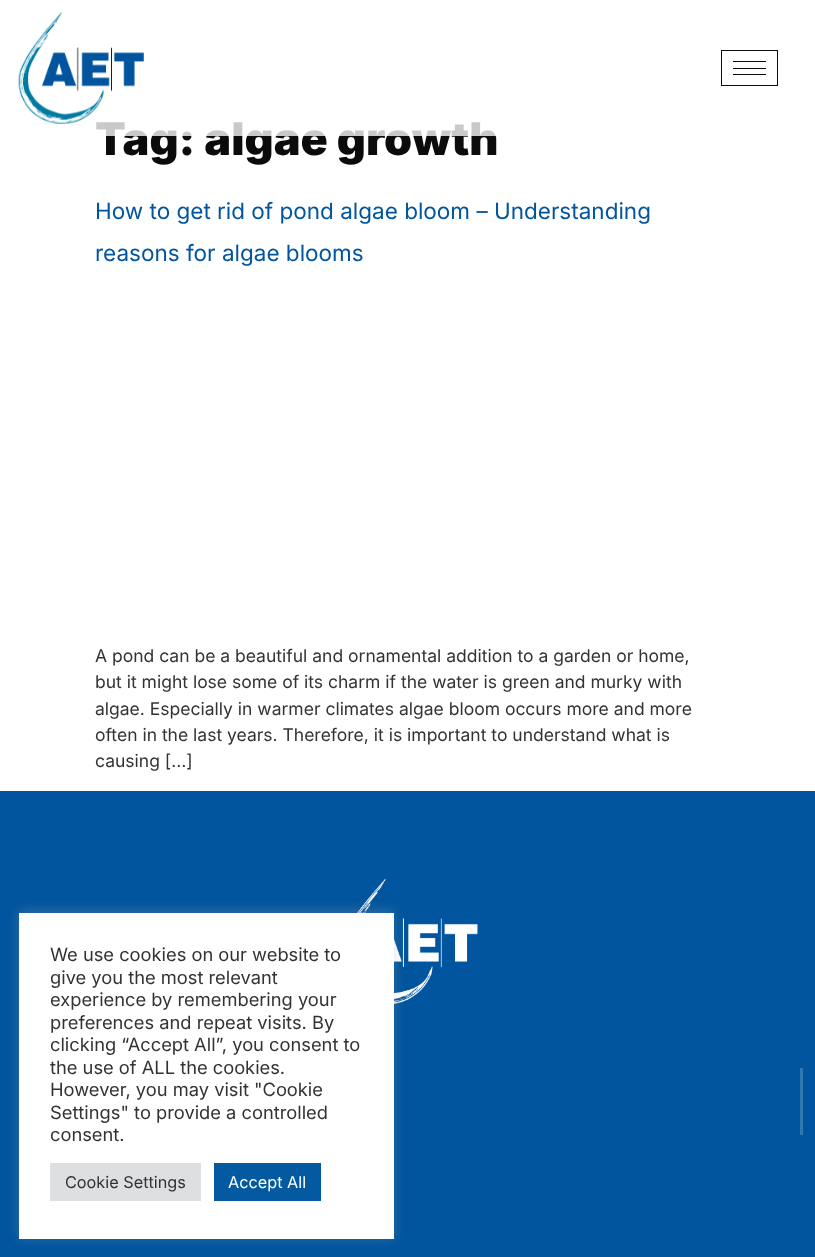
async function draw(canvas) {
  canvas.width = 815;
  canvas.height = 1257;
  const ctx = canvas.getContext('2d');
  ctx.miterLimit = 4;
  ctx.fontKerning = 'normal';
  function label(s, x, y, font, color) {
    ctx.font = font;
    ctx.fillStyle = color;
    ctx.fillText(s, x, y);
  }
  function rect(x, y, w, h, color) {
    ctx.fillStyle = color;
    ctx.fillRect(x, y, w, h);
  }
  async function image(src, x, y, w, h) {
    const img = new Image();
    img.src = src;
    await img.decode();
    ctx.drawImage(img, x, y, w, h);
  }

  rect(0, 0, 815, 1257, '#fff');
  label('Tag: algae growth', 95, 155, '900 45px Inter', '#0b0b0b');
  rect(96, 122, 400, 14, '#ffffffc7');
  await image('assets/img1.png', 18, 12, 126, 112);
  ctx.strokeStyle = '#0b0b0b';
  ctx.strokeRect(721.5, 50.5, 56, 35);
  rect(733, 61, 33, 1, '#0b0b0b');
  rect(733, 68, 33, 1, '#0b0b0b');
  rect(733, 74, 33, 1, '#0b0b0b');
  label('How to get rid of pond algae bloom – Understanding', 95, 219, '22.5px Inter', '#00559e');
  label('reasons for algae blooms', 95, 261, '22.5px Inter', '#00559e');
  label('A pond can be a beautiful and ornamental addition to a garden or home,', 95, 662, '17.5px Inter', '#333');
  label('but it might lose some of its charm if the water is green and murky with', 95, 688, '17.5px Inter', '#333');
  label('algae. Especially in warmer climates algae bloom occurs more and more', 95, 715, '17.5px Inter', '#333');
  label('often in the last years. Therefore, it is important to understand what is', 95, 741, '17.5px Inter', '#333');
  label('causing […]', 95, 767, '17.5px Inter', '#333');
  rect(0, 791, 815, 466, '#00559e');
  await image('assets/img2.png', 357, 878, 121, 126);
  rect(800, 1068, 3, 67, '#3377b1');
  ctx.fillStyle = '#acabab4d';
  ctx.filter = 'blur(6px)';
  ctx.beginPath();
  ctx.rect(19, 911, 375, 327);
  ctx.fill();
  ctx.filter = 'none';
  rect(19, 913, 375, 326, '#fff');
  label('We use cookies on our website to', 50, 961, '18.3px Inter', '#333');
  label('give you the most relevant', 50, 984, '18.3px Inter', '#333');
  label('experience by remembering your', 50, 1006, '18.3px Inter', '#333');
  label('preferences and repeat visits. By', 50, 1029, '18.3px Inter', '#333');
  label('clicking “Accept All”, you consent to', 50, 1051, '18.3px Inter', '#333');
  label('the use of ALL the cookies.', 50, 1074, '18.3px Inter', '#333');
  label('However, you may visit "Cookie', 50, 1096, '18.3px Inter', '#333');
  label('Settings" to provide a controlled', 50, 1119, '18.3px Inter', '#333');
  label('consent.', 50, 1141, '18.3px Inter', '#333');
  rect(50, 1163, 151, 38, '#dedfe0');
  label('Cookie Settings', 65, 1188, '16.25px Inter', '#333');
  rect(214, 1163, 107, 38, '#035aa1');
  label('Accept All', 228, 1188, '16.25px Inter', '#fff');
}

draw(document.querySelector('canvas'));
